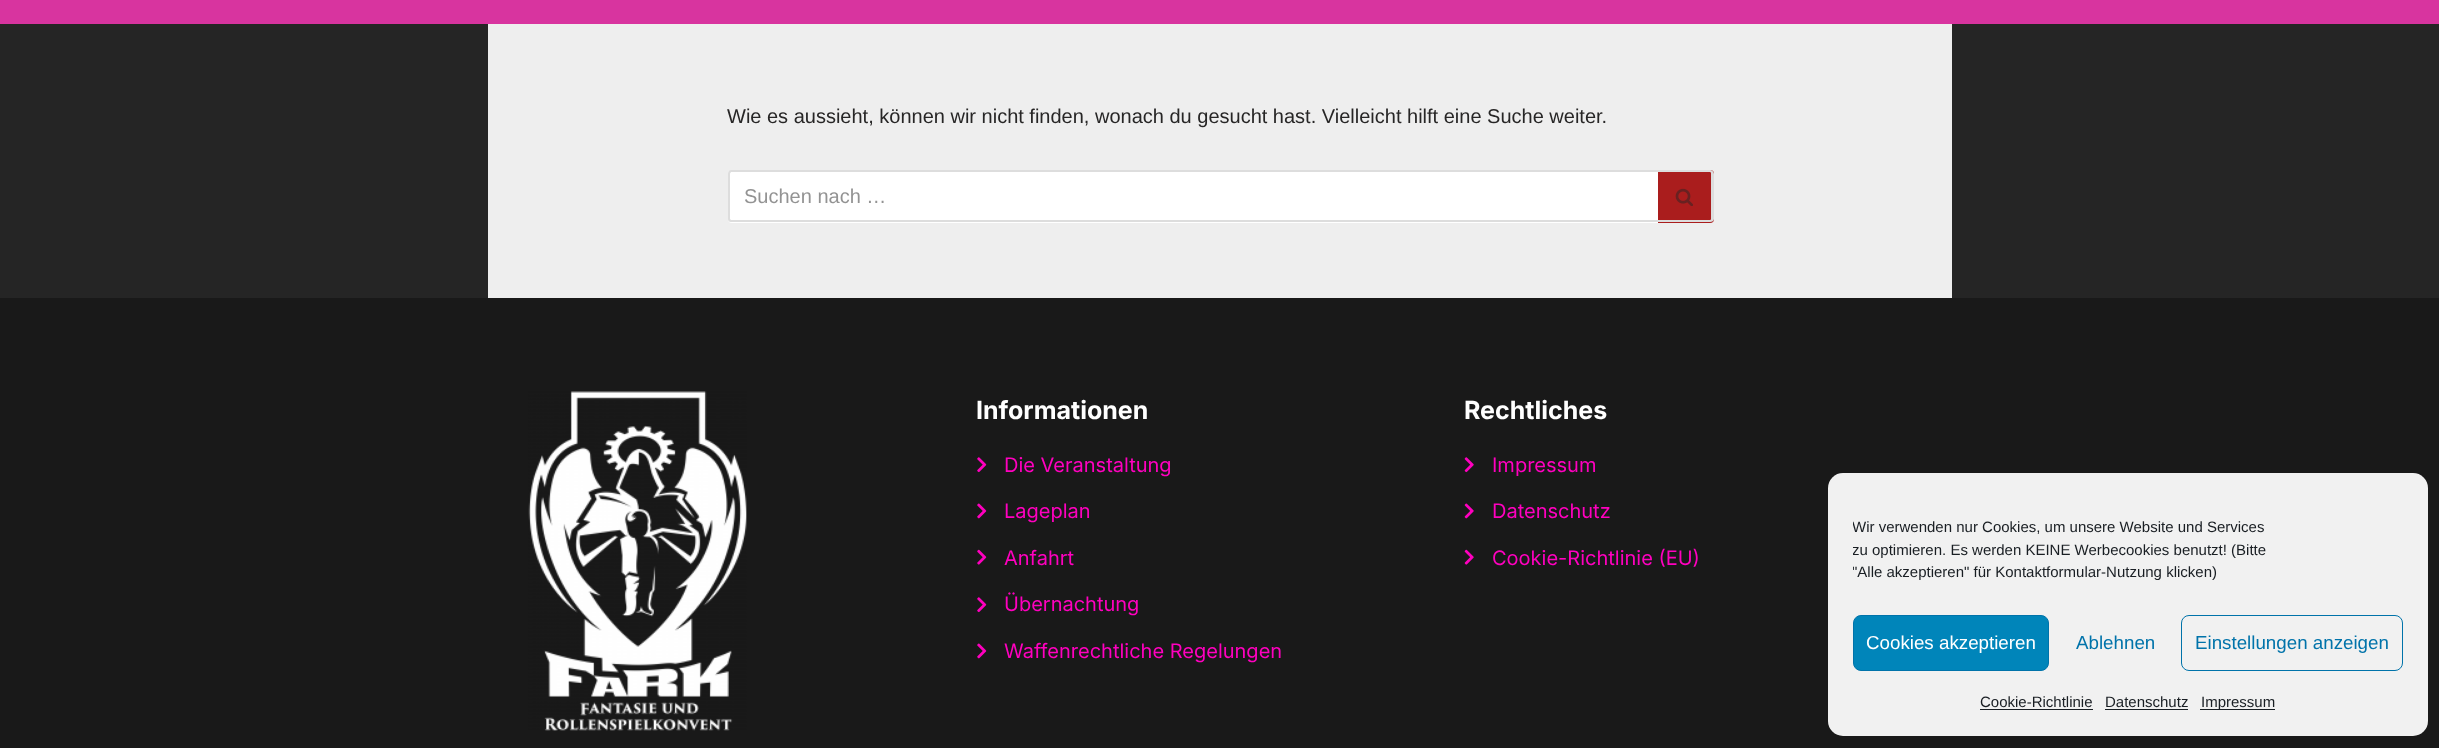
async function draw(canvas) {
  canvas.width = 2439;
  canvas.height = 748;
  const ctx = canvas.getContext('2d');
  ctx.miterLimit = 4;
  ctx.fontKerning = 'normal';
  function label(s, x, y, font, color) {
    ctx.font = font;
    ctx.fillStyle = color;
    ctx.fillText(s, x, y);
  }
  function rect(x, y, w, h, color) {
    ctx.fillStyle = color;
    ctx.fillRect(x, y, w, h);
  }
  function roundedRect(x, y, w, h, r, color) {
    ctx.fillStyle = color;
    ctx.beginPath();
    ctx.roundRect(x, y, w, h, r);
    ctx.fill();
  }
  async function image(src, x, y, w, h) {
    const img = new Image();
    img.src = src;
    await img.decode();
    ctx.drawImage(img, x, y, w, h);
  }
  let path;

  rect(0, 0, 2439, 748, '#252525');
  rect(488, 24, 1464, 274, '#eee');
  rect(0, 0, 2439, 24, '#d8349f');
  label('Wie es aussieht, können wir nicht finden, wonach du gesucht hast. Vielleicht hilft eine Suche weiter.', 727, 123, '20px Liberation Sans', '#272626');
  ctx.fillStyle = '#fff';
  ctx.beginPath();
  ctx.roundRect(728, 170, 930, 53, [4, 0, 0, 4]);
  ctx.fill();
  ctx.fillStyle = '#ddd';
  path = new Path2D('M731 170H1658V222H731C729 222 728 221 728 219V174C728 172 729 170 731 170ZM731 172H1658V220H731C731 220 730 219 730 219V174C730 173 731 172 731 172Z');
  ctx.fill(path, 'evenodd');
  label('Suchen nach …', 744, 203, '20px Liberation Sans', '#939393');
  ctx.fillStyle = '#aa1d1d';
  ctx.beginPath();
  ctx.roundRect(1658, 170, 56, 53, [0, 4, 4, 0]);
  ctx.fill();
  ctx.fillStyle = '#ddd';
  path = new Path2D('M1658 170H1710C1712 170 1714 172 1714 174V219C1714 221 1712 222 1710 222H1658ZM1658 172H1710C1711 172 1711 173 1711 174V219C1711 219 1711 220 1710 220H1658Z');
  ctx.fill(path, 'evenodd');
  await image('assets/img1.png', 1675, 188, 18, 18);
  rect(0, 298, 2439, 450, '#191919');
  await image('assets/img2.png', 528, 391, 219, 340);
  label('Informationen', 976, 419, 'bold 25px Inter', '#fff');
  await image('assets/img3.png', 977, 457, 10, 16);
  label('Die Veranstaltung', 1004, 472, '20px Inter', '#ff00bf');
  await image('assets/img4.png', 977, 503, 10, 16);
  label('Lageplan', 1004, 518, '20px Inter', '#ff00bf');
  await image('assets/img5.png', 977, 549, 10, 16);
  label('Anfahrt', 1004, 565, '20px Inter', '#ff00bf');
  await image('assets/img3.png', 977, 597, 10, 16);
  label('Übernachtung', 1004, 611, '20px Inter', '#ff00bf');
  await image('assets/img4.png', 977, 643, 10, 16);
  label('Waffenrechtliche Regelungen', 1004, 658, '20px Inter', '#ff00bf');
  label('Rechtliches', 1464, 419, 'bold 25px Inter', '#fff');
  await image('assets/img6.png', 1464, 457, 10, 16);
  label('Impressum', 1492, 472, '20px Inter', '#ff00bf');
  await image('assets/img7.png', 1464, 503, 10, 16);
  label('Datenschutz', 1492, 518, '20px Inter', '#ff00bf');
  await image('assets/img8.png', 1464, 549, 10, 16);
  label('Cookie-Richtlinie (EU)', 1492, 565, '20px Inter', '#ff00bf');
  roundedRect(1828, 473, 600, 263, 15, '#f1f1f1');
  ctx.save();
  ctx.beginPath();
  ctx.rect(1853, 516, 550, 74);
  ctx.clip();
  label('Wir verwenden nur Cookies, um unsere Website und Services', 1852, 532, '15px Liberation Sans', '#191e23');
  label('zu optimieren. Es werden KEINE Werbecookies benutzt! (Bitte', 1852, 555, '15px Liberation Sans', '#191e23');
  label('"Alle akzeptieren" für Kontaktformular-Nutzung klicken)', 1852, 577, '15px Liberation Sans', '#191e23');
  ctx.restore();
  ctx.fillStyle = '#0085ba';
  ctx.beginPath();
  ctx.roundRect(1853.5, 615.5, 195, 55, 7.5);
  ctx.fill();
  ctx.strokeStyle = '#0073aa';
  ctx.stroke();
  label('Cookies akzeptieren', 1866, 649, '18.75px Liberation Sans', '#fff');
  label('Ablehnen', 2076, 649, '18.75px Liberation Sans', '#0073aa');
  ctx.beginPath();
  ctx.roundRect(2181.5, 615.5, 221, 55, 7.5);
  ctx.stroke();
  label('Einstellungen anzeigen', 2195, 649, '18.75px Liberation Sans', '#0073aa');
  label('Cookie-Richtlinie', 1980, 707, '15px Liberation Sans', '#191e23');
  rect(1980, 709, 113, 1, '#191e23');
  label('Datenschutz', 2105, 707, '15px Liberation Sans', '#191e23');
  rect(2105, 709, 83, 1, '#191e23');
  rect(2200, 709, 75, 1, '#191e23');
  label('Impressum', 2201, 707, '15px Liberation Sans', '#191e23');
}

draw(document.querySelector('canvas'));
